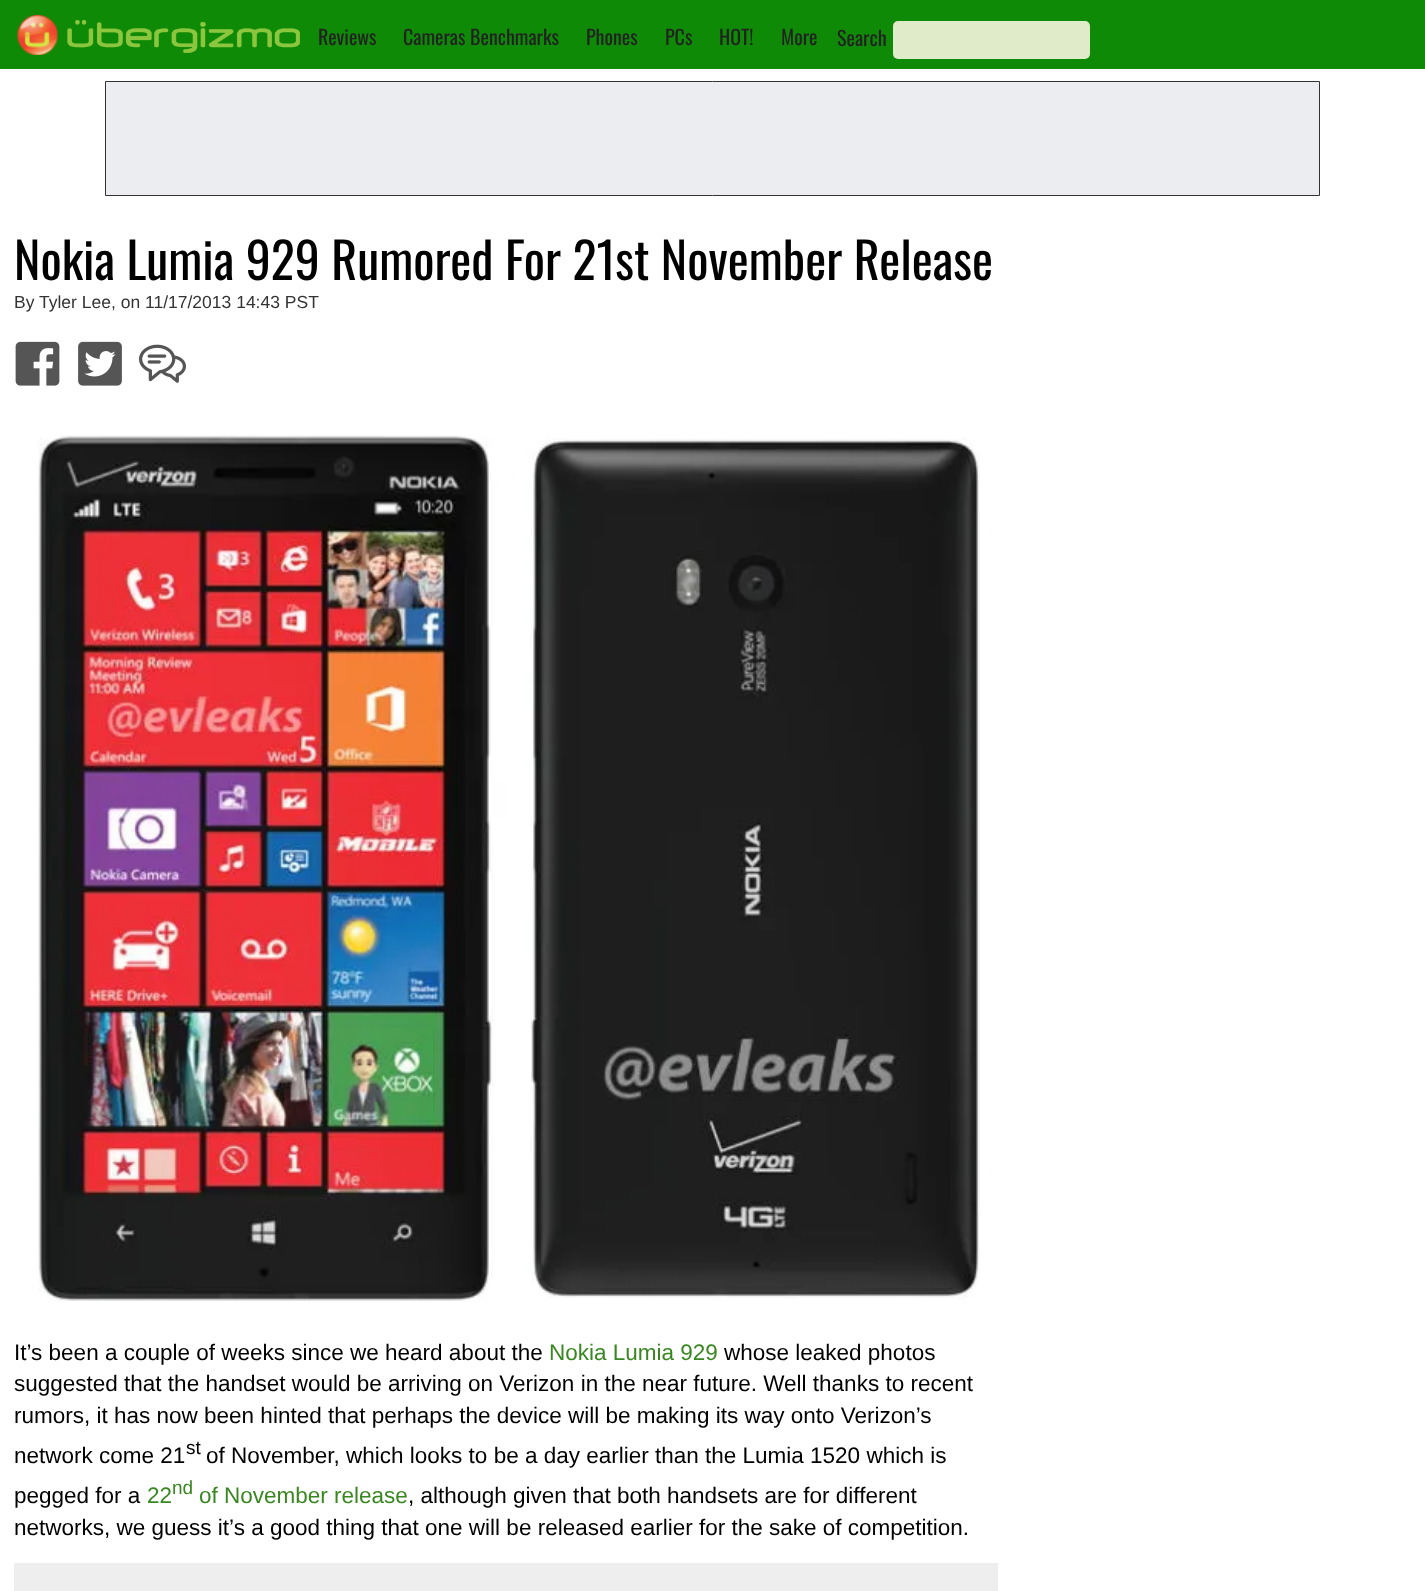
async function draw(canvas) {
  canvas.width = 1425;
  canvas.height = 1591;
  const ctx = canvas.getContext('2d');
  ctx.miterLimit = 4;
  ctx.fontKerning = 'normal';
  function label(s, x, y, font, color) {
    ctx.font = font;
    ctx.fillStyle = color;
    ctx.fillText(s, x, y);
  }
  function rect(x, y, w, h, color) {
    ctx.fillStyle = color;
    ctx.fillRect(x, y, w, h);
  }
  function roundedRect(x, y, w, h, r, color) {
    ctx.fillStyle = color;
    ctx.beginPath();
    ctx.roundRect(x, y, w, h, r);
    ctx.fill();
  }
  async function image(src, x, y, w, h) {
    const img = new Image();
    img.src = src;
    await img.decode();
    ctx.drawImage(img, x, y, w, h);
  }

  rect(0, 0, 1425, 1591, '#fff');
  rect(0, 0, 1425, 69, '#0f8a07');
  await image('assets/img1.png', 17, 15, 41, 40);
  await image('assets/img2.png', 67, 20, 233, 33);
  label('Reviews', 318, 45, '20px Oswald', '#222');
  label('Cameras Benchmarks', 403, 45, '20px Oswald', '#222');
  label('Phones', 586, 45, '20px Oswald', '#222');
  label('PCs', 665, 45, '20px Oswald', '#222');
  label('HOT!', 719, 45, '20px Oswald', '#222');
  label('More', 781, 45, '20px Oswald', '#222');
  label('Search', 837, 46, '20px Oswald', '#222');
  roundedRect(893, 21, 197, 38, 5, '#e0ebc9');
  ctx.fillStyle = '#ebedf0';
  ctx.beginPath();
  ctx.rect(105.5, 81.5, 1214, 114);
  ctx.fill();
  ctx.strokeStyle = '#333';
  ctx.stroke();
  label('Nokia Lumia 929 Rumored For 21st November Release', 14, 280, '50px Oswald', '#000');
  label('By Tyler Lee, on 11/17/2013 14:43 PST', 14, 308, '17.5px Liberation Sans', '#333');
  await image('assets/img3.png', 15, 341, 45, 45);
  await image('assets/img4.png', 78, 341, 44, 45);
  await image('assets/img5.png', 139, 344, 47, 39);
  await image('assets/img6.png', 38, 435, 942, 867);
  label('It’s been a couple of weeks since we heard about the', 14, 1360, '22.5px Liberation Sans', '#000');
  label('Nokia Lumia 929', 549, 1360, '22.5px Liberation Sans', '#398720');
  label('whose leaked photos', 724, 1360, '22.5px Liberation Sans', '#000');
  label('suggested that the handset would be arriving on Verizon in the near future. Well thanks to recent', 14, 1391, '22.5px Liberation Sans', '#000');
  label('rumors, it has now been hinted that perhaps the device will be making its way onto Verizon’s', 14, 1423, '22.5px Liberation Sans', '#000');
  label('network come 21', 14, 1463, '22.5px Liberation Sans', '#000');
  label('st', 186, 1454, '19px Liberation Sans', '#000');
  label('of November, which looks to be a day earlier than the Lumia 1520 which is', 206, 1463, '22.5px Liberation Sans', '#000');
  label('pegged for a', 14, 1503, '22.5px Liberation Sans', '#000');
  label('22', 147, 1503, '22.5px Liberation Sans', '#398720');
  label('nd', 172, 1494, '19px Liberation Sans', '#398720');
  label('of November release', 199, 1503, '22.5px Liberation Sans', '#398720');
  label(', although given that both handsets are for different', 408, 1503, '22.5px Liberation Sans', '#000');
  label('networks, we guess it’s a good thing that one will be released earlier for the sake of competition.', 14, 1535, '22.5px Liberation Sans', '#000');
  rect(14, 1563, 984, 28, '#eee');
}

draw(document.querySelector('canvas'));
